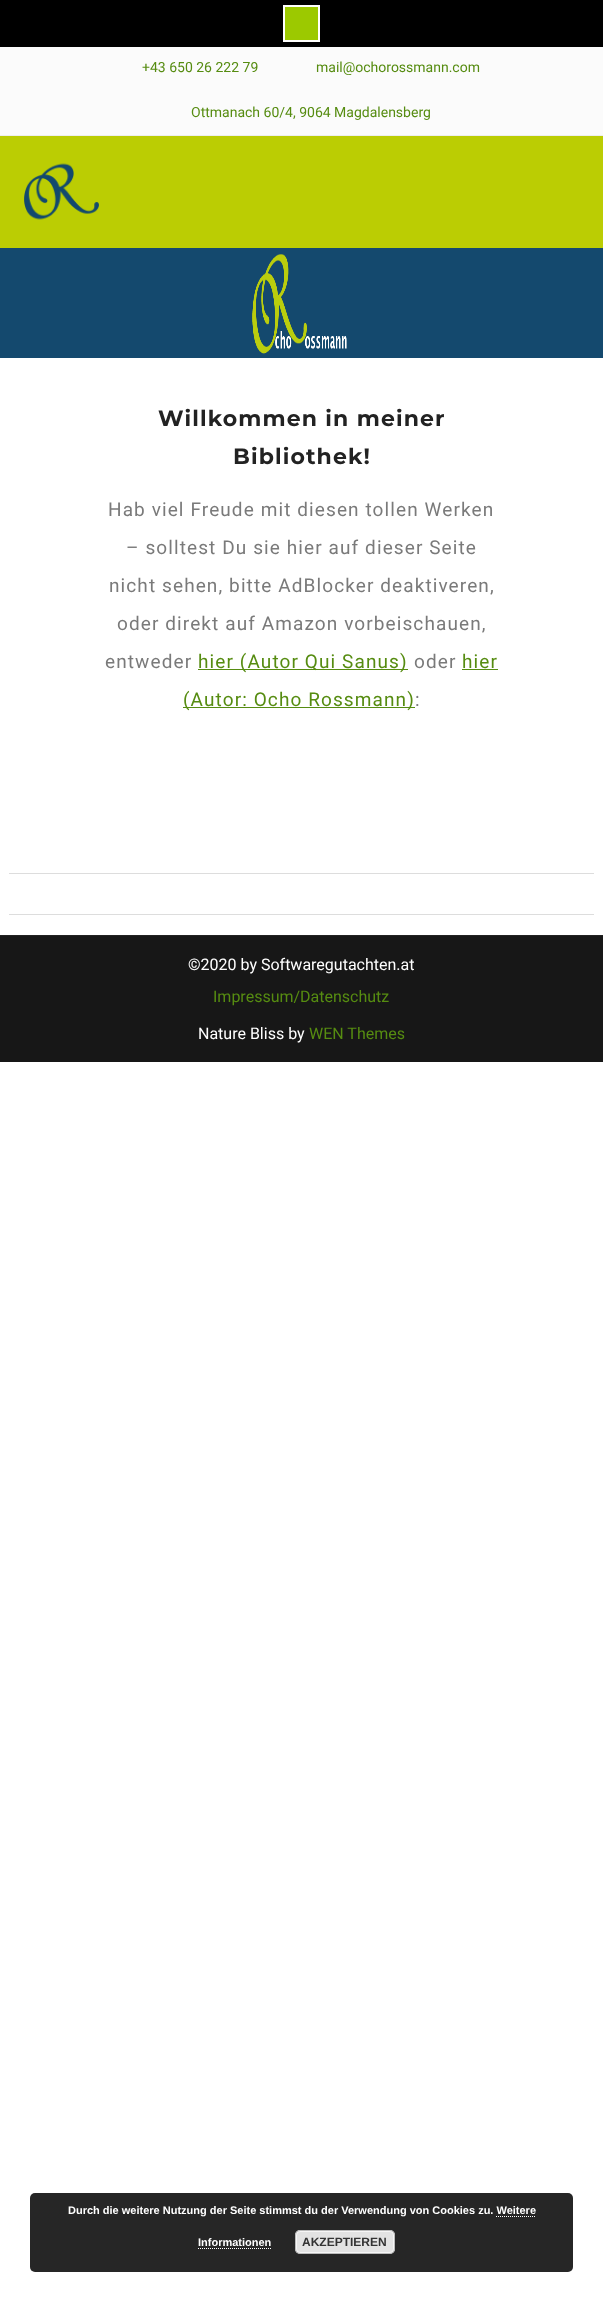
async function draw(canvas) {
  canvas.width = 603;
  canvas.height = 2302;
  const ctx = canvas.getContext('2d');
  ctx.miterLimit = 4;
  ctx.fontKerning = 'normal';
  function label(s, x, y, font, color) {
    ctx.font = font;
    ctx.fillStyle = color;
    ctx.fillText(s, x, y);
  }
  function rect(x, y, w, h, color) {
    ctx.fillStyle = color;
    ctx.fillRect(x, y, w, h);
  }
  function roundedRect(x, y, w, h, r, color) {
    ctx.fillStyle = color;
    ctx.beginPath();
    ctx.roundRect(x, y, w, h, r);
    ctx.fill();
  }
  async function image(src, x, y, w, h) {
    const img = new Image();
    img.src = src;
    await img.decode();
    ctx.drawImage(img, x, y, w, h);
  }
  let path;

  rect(0, 0, 603, 2302, '#fff');
  rect(0, 0, 603, 47, '#000');
  ctx.fillStyle = '#9cc900';
  ctx.beginPath();
  ctx.rect(284, 6, 35, 35);
  ctx.fill();
  ctx.strokeStyle = '#fffffe';
  ctx.lineWidth = 2;
  ctx.stroke();
  rect(0, 47, 603, 88, '#fbfbfb');
  rect(0, 135, 603, 1, '#eee');
  label('+43 650 26 222 79', 142, 72, '14px Roboto', '#568c11');
  label('mail@ochorossmann.com', 316, 72, '14px Roboto', '#568c11');
  label('Ottmanach 60/4, 9064 Magdalensberg', 191, 117, '14px Roboto', '#568c11');
  rect(0, 136, 603, 112, '#bbcd03');
  await image('assets/img1.png', 24, 163, 75, 57);
  rect(9, 873, 585, 1, '#ddd');
  await image('assets/img2.png', 0, 248, 603, 110);
  ctx.letterSpacing = '1.1px';
  label('Willkommen in meiner', 158, 426, 'bold 22px Montserrat', '#222');
  label('Bibliothek!', 233, 464, 'bold 22px Montserrat', '#222');
  label('Hab viel Freude mit diesen tollen Werken', 108, 516, '19px Roboto', '#7a7a7a');
  label('– solltest Du sie hier auf dieser Seite', 126, 554, '19px Roboto', '#7a7a7a');
  label('nicht sehen, bitte AdBlocker deaktiveren,', 109, 592, '19px Roboto', '#7a7a7a');
  label('oder direkt auf Amazon vorbeischauen,', 117, 630, '19px Roboto', '#7a7a7a');
  label('entweder', 105, 668, '19px Roboto', '#7a7a7a');
  rect(198, 669, 210, 1, '#568c11');
  label('hier (Autor Qui Sanus)', 198, 668, '19px Roboto', '#568c11');
  label('oder', 414, 668, '19px Roboto', '#7a7a7a');
  label('hier', 462, 668, '19px Roboto', '#568c11');
  rect(462, 669, 36, 1, '#568c11');
  rect(183, 707, 232, 1, '#568c11');
  label('(Autor: Ocho Rossmann)', 183, 706, '19px Roboto', '#568c11');
  label(':', 415, 706, '19px Roboto', '#7a7a7a');
  rect(9, 914, 585, 1, '#ddd');
  rect(0, 936, 603, 126, '#171717');
  rect(0, 935, 603, 1, '#222');
  ctx.letterSpacing = '0px';
  label('©2020 by Softwaregutachten.at', 188, 970, '16px Roboto', '#fff');
  label('Impressum/Datenschutz', 213, 1002, '16px Roboto', '#568c11');
  label('Nature Bliss by', 198, 1039, '16px Roboto', '#fff');
  label('WEN Themes', 309, 1039, '16px Roboto', '#568c11');
  roundedRect(30, 2193, 543, 79, 5, '#262626');
  label('Durch die weitere Nutzung der Seite stimmst du der Verwendung von Cookies zu. Weitere', 68, 2214, 'bold 11px Liberation Sans', '#fff');
  label('Informationen', 198, 2246, 'bold 11px Liberation Sans', '#fff');
  path = new Path2D('M496 2216.5H536');
  ctx.strokeStyle = '#fff';
  ctx.lineWidth = 1;
  ctx.setLineDash([1, 1]);
  ctx.stroke(path);
  path = new Path2D('M198 2248.5H272');
  ctx.stroke(path);
  roundedRect(295, 2230, 100, 24, 5, '#e3e3e3');
  ctx.beginPath();
  ctx.roundRect(296.5, 2231.5, 97, 21, 3.5);
  ctx.strokeStyle = '#f6f6f6';
  ctx.setLineDash([]);
  ctx.stroke();
  ctx.beginPath();
  ctx.roundRect(295.5, 2230.5, 99, 23, 4.5);
  ctx.strokeStyle = '#bbb';
  ctx.stroke();
  label('AKZEPTIEREN', 302, 2246, 'bold 12px Liberation Sans', '#333');
}

draw(document.querySelector('canvas'));
